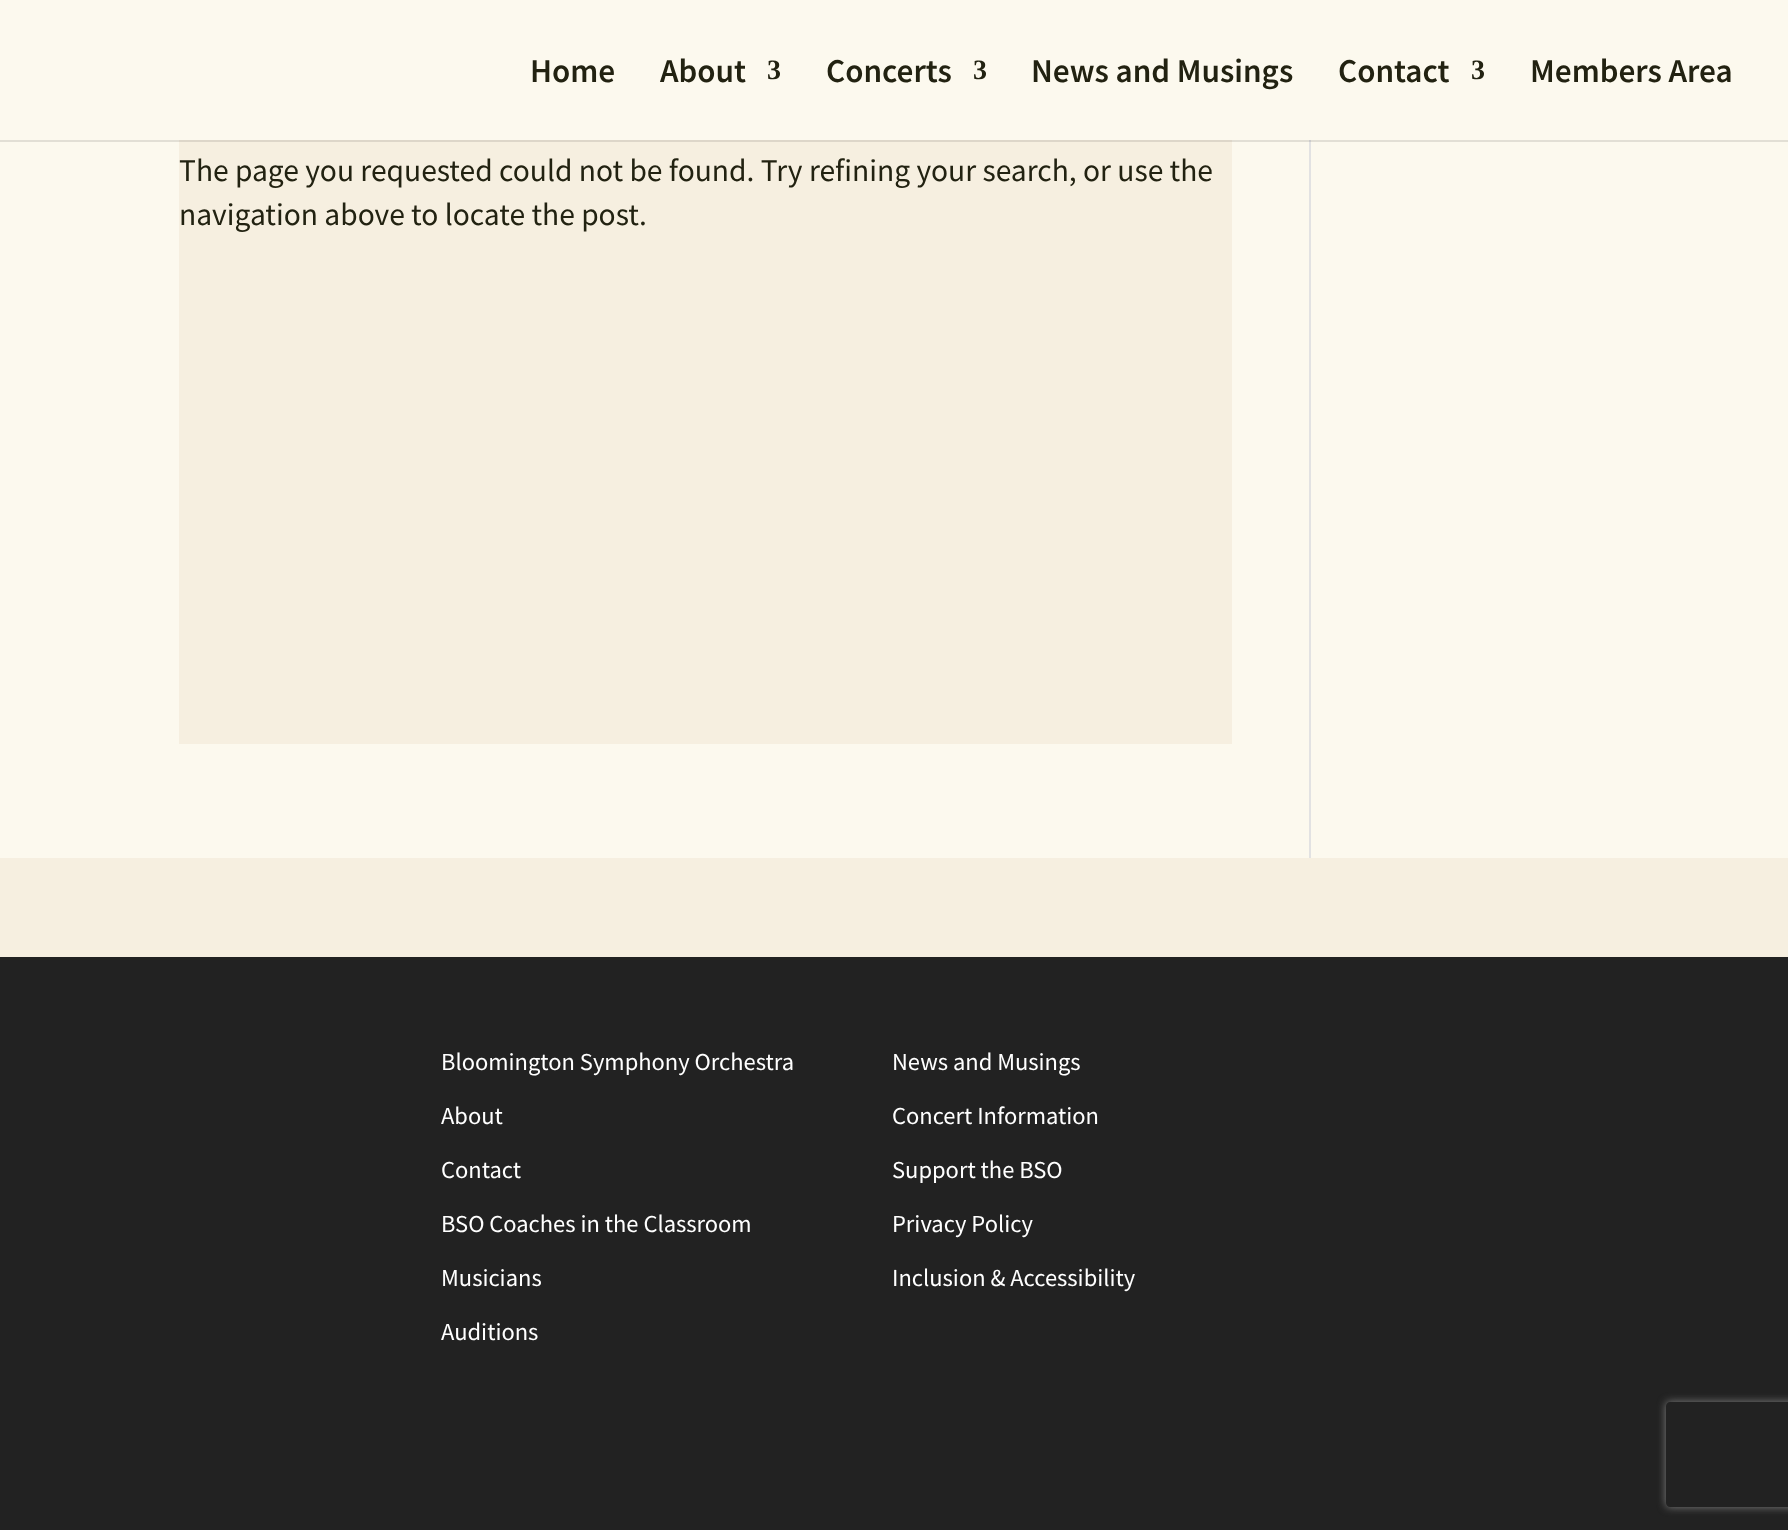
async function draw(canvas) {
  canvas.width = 1788;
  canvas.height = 1530;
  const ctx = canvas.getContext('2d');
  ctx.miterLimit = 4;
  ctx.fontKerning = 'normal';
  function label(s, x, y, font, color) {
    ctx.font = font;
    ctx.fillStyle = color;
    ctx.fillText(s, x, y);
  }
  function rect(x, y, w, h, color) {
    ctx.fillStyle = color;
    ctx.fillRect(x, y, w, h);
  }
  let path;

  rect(0, 0, 1788, 1530, '#f6efe0');
  rect(0, 0, 1788, 858, '#fcf9ee');
  rect(179, 140, 1053, 604, '#f6efe0');
  rect(1309, 140, 2, 718, '#e2e2e2');
  ctx.fillStyle = '#0000001a';
  path = new Path2D('M0 140V142H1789V2H1788V140Z');
  ctx.fill(path);
  label('Home', 530, 82, '600 33.25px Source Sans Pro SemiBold', '#221');
  label('About', 660, 82, '600 33.25px Source Sans Pro SemiBold', '#221');
  label('3', 767, 79, 'bold 28px Liberation Serif', '#221');
  label('Concerts', 826, 82, '600 33.25px Source Sans Pro SemiBold', '#221');
  label('3', 973, 79, 'bold 28px Liberation Serif', '#221');
  label('News and Musings', 1031, 82, '600 33.25px Source Sans Pro SemiBold', '#221');
  label('Contact', 1338, 82, '600 33.25px Source Sans Pro SemiBold', '#221');
  label('3', 1471, 79, 'bold 28px Liberation Serif', '#221');
  label('Members Area', 1530, 82, '600 33.25px Source Sans Pro SemiBold', '#221');
  label('The page you requested could not be found. Try refining your search, or use the', 179, 181, '31.5px Source Sans Pro', '#221');
  label('navigation above to locate the post.', 179, 225, '31.5px Source Sans Pro', '#221');
  rect(0, 957, 1788, 573, '#222');
  label('Bloomington Symphony Orchestra', 441, 1070, '24.5px Source Sans Pro', '#fff');
  label('About', 441, 1124, '24.5px Source Sans Pro', '#fff');
  label('Contact', 441, 1178, '24.5px Source Sans Pro', '#fff');
  label('BSO Coaches in the Classroom', 441, 1232, '24.5px Source Sans Pro', '#fff');
  label('Musicians', 441, 1286, '24.5px Source Sans Pro', '#fff');
  label('Auditions', 441, 1340, '24.5px Source Sans Pro', '#fff');
  label('News and Musings', 892, 1070, '24.5px Source Sans Pro', '#fff');
  label('Concert Information', 892, 1124, '24.5px Source Sans Pro', '#fff');
  label('Support the BSO', 892, 1178, '24.5px Source Sans Pro', '#fff');
  label('Privacy Policy', 892, 1232, '24.5px Source Sans Pro', '#fff');
  label('Inclusion & Accessibility', 892, 1286, '24.5px Source Sans Pro', '#fff');
  ctx.save();
  path = new Path2D('M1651 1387H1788V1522H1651ZM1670 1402H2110C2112 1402 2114 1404 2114 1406V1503C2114 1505 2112 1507 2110 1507H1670C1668 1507 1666 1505 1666 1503V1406C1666 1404 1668 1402 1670 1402Z');
  ctx.clip(path, 'evenodd');
  ctx.fillStyle = '#808080';
  ctx.filter = 'blur(4.5px)';
  ctx.beginPath();
  ctx.roundRect(1666, 1402, 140, 105, 4);
  ctx.fill();
  ctx.filter = 'none';
  ctx.restore();
}

draw(document.querySelector('canvas'));
